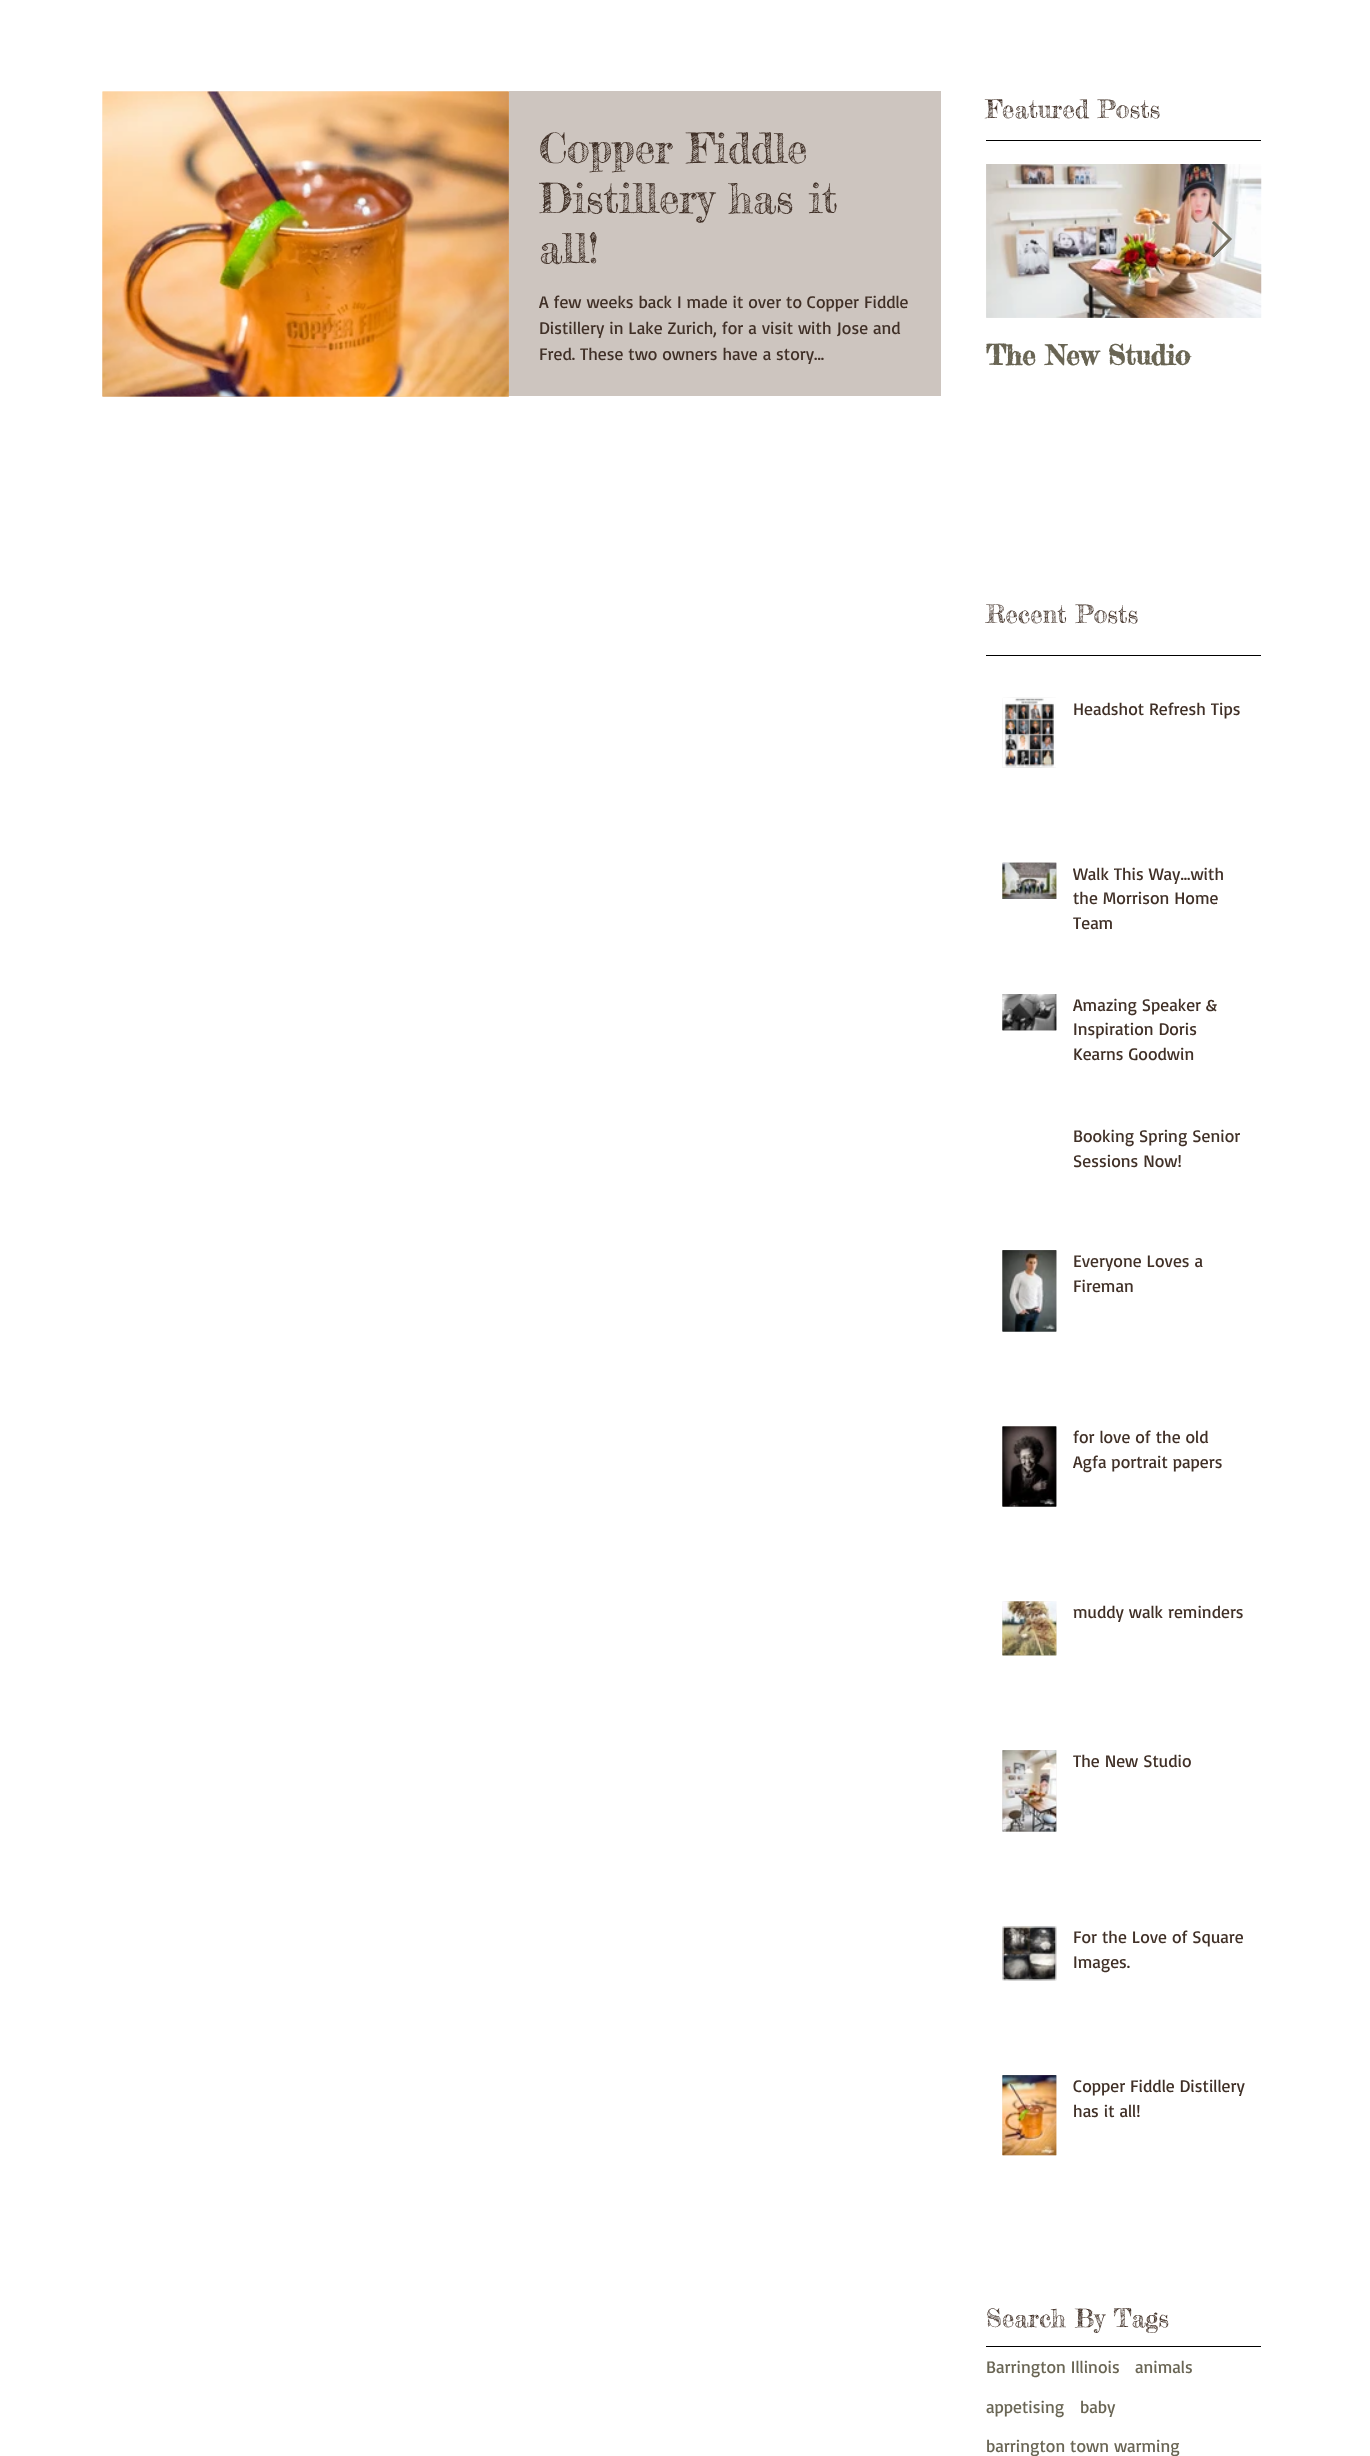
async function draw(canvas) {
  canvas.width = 1370;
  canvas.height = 2456;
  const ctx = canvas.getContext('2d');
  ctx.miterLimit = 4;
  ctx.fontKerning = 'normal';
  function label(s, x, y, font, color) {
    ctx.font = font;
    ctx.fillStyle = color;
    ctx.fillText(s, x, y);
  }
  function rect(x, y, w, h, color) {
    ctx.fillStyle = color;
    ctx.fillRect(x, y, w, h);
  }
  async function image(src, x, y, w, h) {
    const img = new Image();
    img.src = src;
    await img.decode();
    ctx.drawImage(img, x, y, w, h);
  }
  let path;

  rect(0, 0, 1370, 2456, '#fff');
  label('Featured Posts', 986, 118, '25px Fredericka the Great', '#403027');
  await image('assets/img1.png', 102, 91, 407, 306);
  await image('assets/img2.png', 102, 91, 407, 306);
  rect(509, 91, 432, 305, '#cdc5bf');
  label('Copper Fiddle', 539, 163, '41.25px Fredericka the Great', '#403027');
  ctx.save();
  ctx.beginPath();
  ctx.rect(539, 123, 372, 150);
  ctx.clip();
  label('Distillery has it', 539, 213, '41.25px Fredericka the Great', '#403027');
  ctx.restore();
  label('all!', 539, 263, '41.25px Fredericka the Great', '#403027');
  label('A few weeks back I made it over to Copper Fiddle', 539, 308, '17.5px Basic', '#403027');
  label('Distillery in Lake Zurich, for a visit with Jose and', 539, 334, '17.5px Basic', '#403027');
  label('Fred. These two owners have a story...', 539, 360, '17.5px Basic', '#403027');
  rect(986, 140, 275, 1, '#000');
  await image('assets/img3.png', 986, 164, 275, 154);
  await image('assets/img4.png', 986, 164, 276, 154);
  ctx.fillStyle = '#696554e6';
  path = new Path2D('M1212.5 223L1214 221.5L1231.5 239L1214 257L1212.5 255.5L1228.5 239Z');
  ctx.fill(path);
  ctx.strokeStyle = '#696554e6';
  ctx.stroke(path);
  label('The New Studio', 986, 365, 'bold 27.5px Fredericka the Great', '#696554');
  label('Recent Posts', 986, 623, '25px Fredericka the Great', '#403027');
  rect(986, 655, 275, 1, '#000');
  await image('assets/img5.png', 1002, 697, 54, 71);
  await image('assets/img6.png', 1002, 698, 54, 70);
  label('Headshot Refresh Tips', 1073, 715, '17.5px Basic', '#403027');
  await image('assets/img7.png', 1002, 862, 55, 37);
  await image('assets/img8.png', 1002, 862, 55, 37);
  ctx.save();
  ctx.beginPath();
  ctx.rect(1073, 861, 173, 74);
  ctx.clip();
  label('Walk This Way...with', 1073, 880, '17.5px Basic', '#403027');
  ctx.restore();
  label('the Morrison Home', 1073, 904, '17.5px Basic', '#403027');
  label('Team', 1073, 929, '17.5px Basic', '#403027');
  await image('assets/img9.png', 1002, 994, 55, 37);
  await image('assets/img10.png', 1002, 994, 55, 37);
  label('Amazing Speaker &', 1073, 1011, '17.5px Basic', '#403027');
  label('Inspiration Doris', 1073, 1035, '17.5px Basic', '#403027');
  label('Kearns Goodwin', 1073, 1060, '17.5px Basic', '#403027');
  label('Booking Spring Senior', 1073, 1142, '17.5px Basic', '#403027');
  label('Sessions Now!', 1073, 1167, '17.5px Basic', '#403027');
  await image('assets/img11.png', 1002, 1250, 55, 82);
  await image('assets/img12.png', 1002, 1250, 55, 82);
  label('Everyone Loves a', 1073, 1267, '17.5px Basic', '#403027');
  label('Fireman', 1073, 1292, '17.5px Basic', '#403027');
  await image('assets/img13.png', 1002, 1426, 55, 81);
  await image('assets/img14.png', 1002, 1426, 55, 81);
  label('for love of the old', 1073, 1443, '17.5px Basic', '#403027');
  label('Agfa portrait papers', 1073, 1468, '17.5px Basic', '#403027');
  await image('assets/img15.png', 1002, 1601, 55, 55);
  await image('assets/img16.png', 1002, 1601, 55, 55);
  label('muddy walk reminders', 1073, 1618, '17.5px Basic', '#403027');
  await image('assets/img17.png', 1002, 1750, 55, 82);
  await image('assets/img18.png', 1002, 1750, 55, 82);
  label('The New Studio', 1073, 1767, '17.5px Basic', '#403027');
  await image('assets/img19.png', 1002, 1926, 55, 55);
  await image('assets/img20.png', 1002, 1926, 55, 55);
  label('For the Love of Square', 1073, 1943, '17.5px Basic', '#403027');
  label('Images.', 1073, 1968, '17.5px Basic', '#403027');
  await image('assets/img21.png', 1002, 2075, 55, 81);
  await image('assets/img22.png', 1002, 2075, 55, 81);
  label('Copper Fiddle Distillery', 1073, 2092, '17.5px Basic', '#403027');
  label('has it all!', 1073, 2117, '17.5px Basic', '#403027');
  label('Search By Tags', 986, 2327, '25px Fredericka the Great', '#403027');
  rect(986, 2346, 275, 1, '#000');
  label('Barrington Illinois', 986, 2373, '17.5px Basic', '#696554');
  label('animals', 1135, 2373, '17.5px Basic', '#696554');
  label('appetising', 986, 2413, '17.5px Basic', '#696554');
  label('baby', 1080, 2413, '17.5px Basic', '#696554');
  label('barrington town warming', 986, 2452, '17.5px Basic', '#696554');
}

draw(document.querySelector('canvas'));
